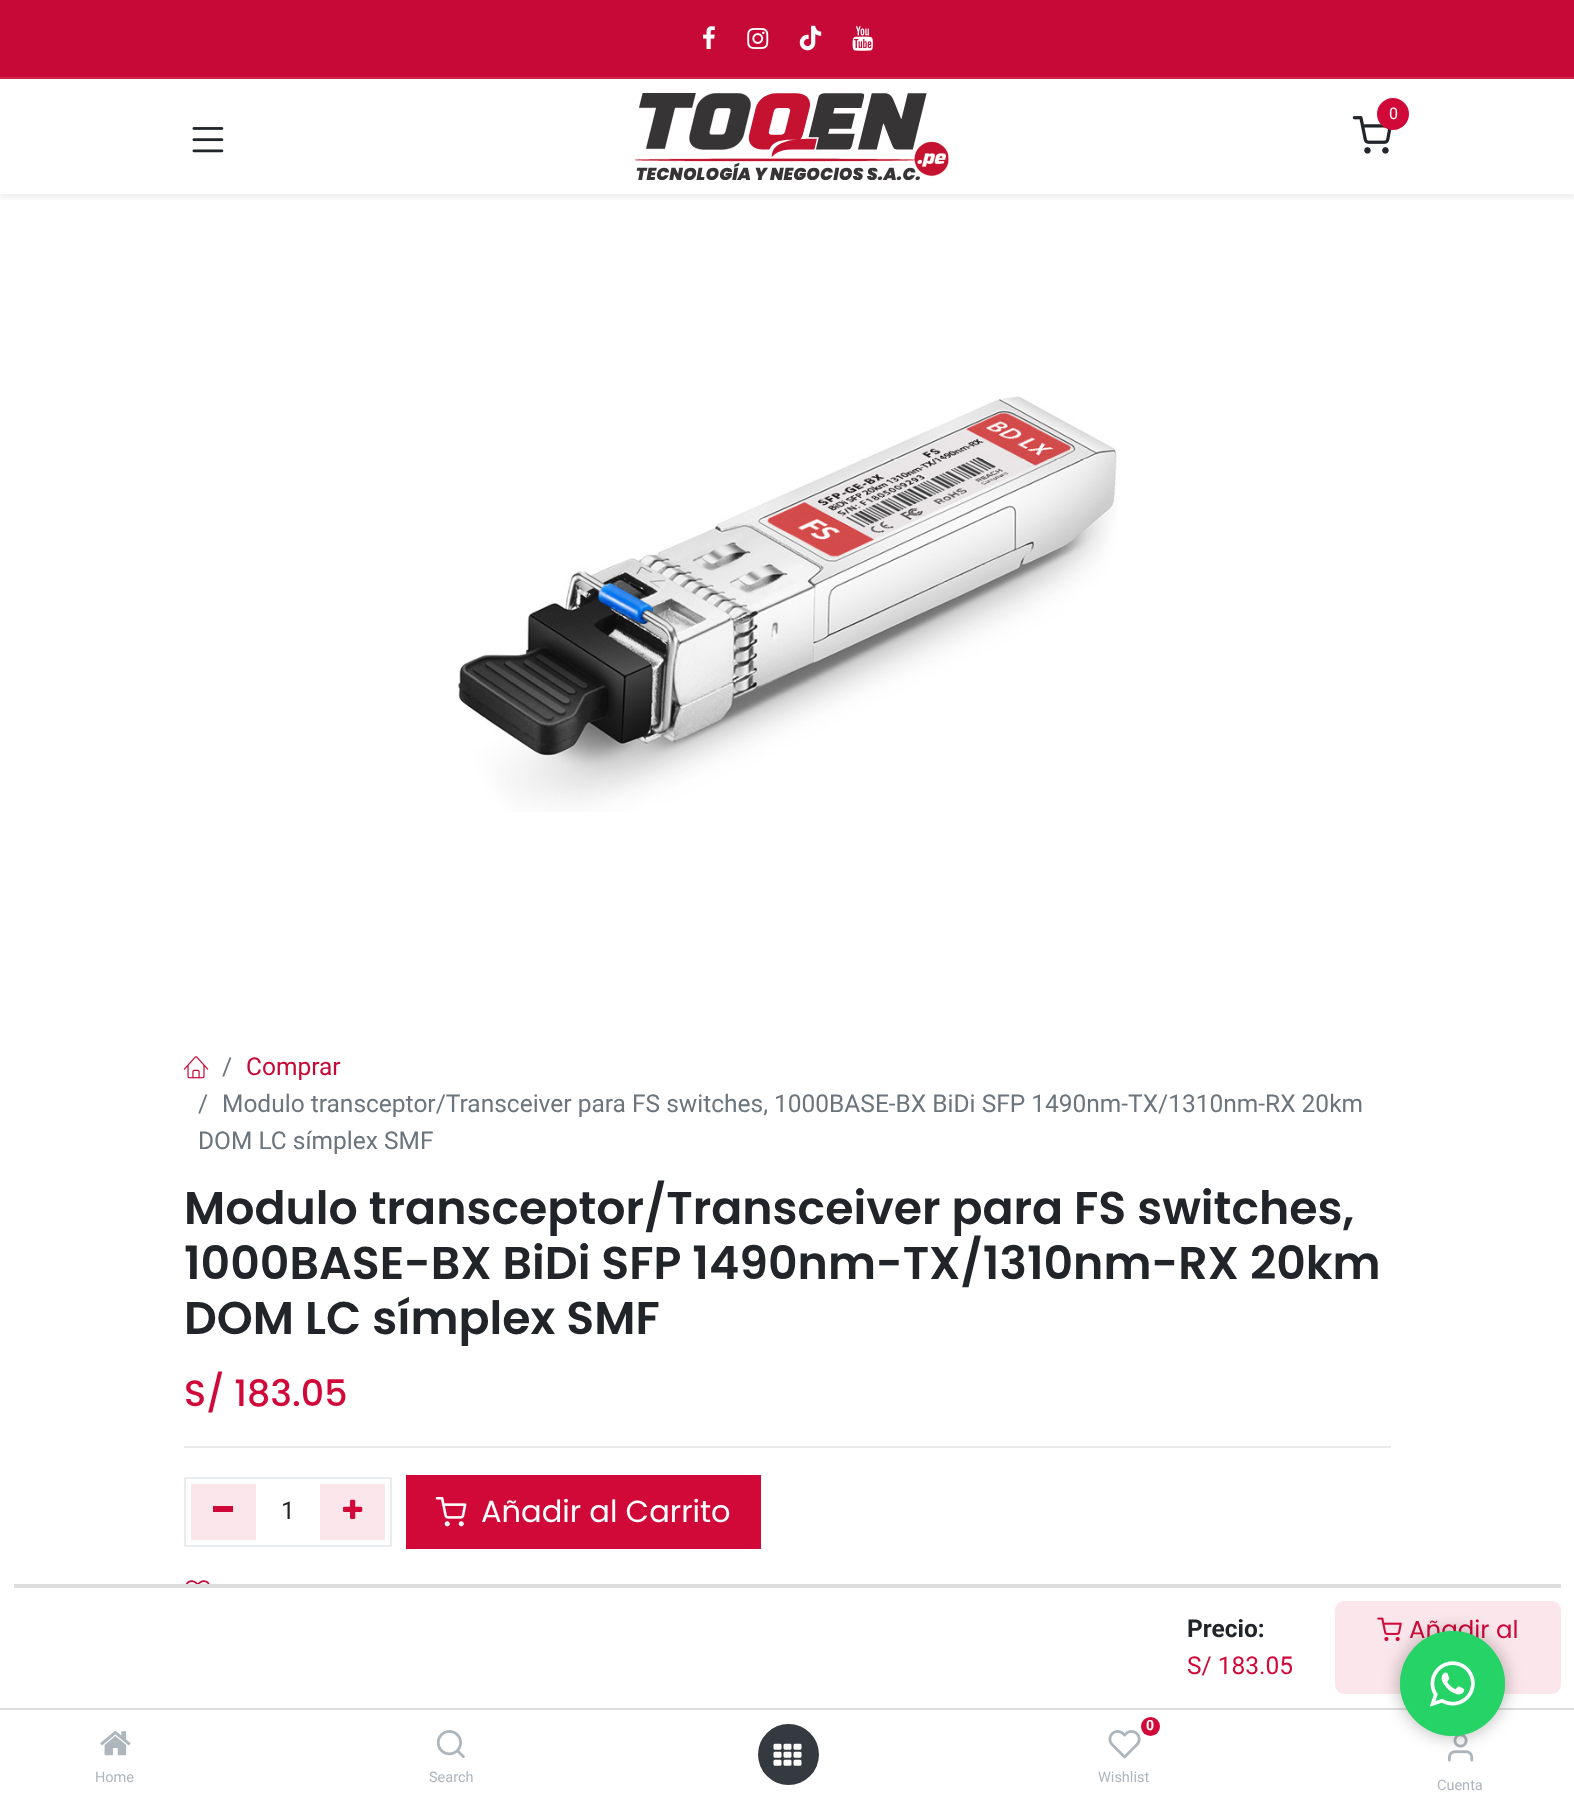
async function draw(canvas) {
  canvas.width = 1574;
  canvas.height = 1806;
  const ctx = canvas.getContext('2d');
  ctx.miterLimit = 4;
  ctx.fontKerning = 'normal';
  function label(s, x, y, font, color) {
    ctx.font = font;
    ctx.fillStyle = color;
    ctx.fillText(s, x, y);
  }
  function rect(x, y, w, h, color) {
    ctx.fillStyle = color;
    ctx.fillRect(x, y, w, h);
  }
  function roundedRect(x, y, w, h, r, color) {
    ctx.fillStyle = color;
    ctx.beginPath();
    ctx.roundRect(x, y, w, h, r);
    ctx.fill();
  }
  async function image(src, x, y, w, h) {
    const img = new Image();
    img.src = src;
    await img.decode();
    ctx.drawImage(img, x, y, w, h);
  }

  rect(0, 0, 1574, 1806, '#fff');
  rect(0, 0, 1574, 77, '#c60936');
  rect(0, 77, 1574, 2, '#cd274e');
  await image('assets/img1.png', 703, 26, 12, 23);
  await image('assets/img2.png', 747, 28, 22, 21);
  await image('assets/img3.png', 799, 25, 23, 26);
  await image('assets/img4.png', 852, 26, 21, 25);
  ctx.save();
  ctx.beginPath();
  ctx.rect(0, 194, 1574, 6);
  ctx.clip();
  ctx.fillStyle = '#00000012';
  ctx.filter = 'blur(3.5px)';
  ctx.beginPath();
  ctx.rect(0, 82, 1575, 116);
  ctx.fill();
  ctx.filter = 'none';
  ctx.restore();
  await image('assets/img5.png', 635, 93, 314, 87);
  await image('assets/img6.png', 1352, 116, 40, 38);
  ctx.fillStyle = '#d00939';
  ctx.beginPath();
  ctx.arc(1393, 114, 16, 0, 2 * Math.PI);
  ctx.fill();
  label('0', 1389, 119, '16px Roboto', '#fff');
  await image('assets/img7.png', 192, 127, 32, 26);
  await image('assets/img8.png', 458, 396, 659, 416);
  await image('assets/img9.png', 183, 1056, 26, 23);
  label('/', 222, 1075, '24.5px Roboto', '#6c757d');
  label('Comprar', 246, 1075, '24.5px Roboto', '#c60936');
  label('/', 198, 1112, '24.5px Roboto', '#6c757d');
  label('Modulo transceptor/Transceiver para FS switches, 1000BASE-BX BiDi SFP 1490nm-TX/1310nm-RX 20km', 222, 1112, '24.5px Roboto', '#6c757d');
  label('DOM LC símplex SMF', 198, 1149, '24.5px Roboto', '#6c757d');
  label('Modulo transceptor/Transceiver para FS switches,', 184, 1224, '600 45.85px Poppins', '#212529');
  label('1000BASE-BX BiDi SFP 1490nm-TX/1310nm-RX 20km', 184, 1279, '600 45.85px Poppins', '#212529');
  label('DOM LC símplex SMF', 184, 1334, '600 45.85px Poppins', '#212529');
  label('S/ 183.05', 184, 1406, '500 36.5px Poppins', '#d00939');
  rect(184, 1446, 1207, 2, '#e9eaea');
  ctx.strokeStyle = '#e9ecef';
  ctx.lineWidth = 2;
  ctx.strokeRect(185, 1478, 206, 68);
  rect(191, 1484, 65, 56, '#fae6eb');
  rect(213, 1506, 20, 6, '#d00939');
  label('1', 281, 1519, '24.5px Roboto', '#212529');
  rect(320, 1484, 65, 56, '#fae6eb');
  await image('assets/img10.png', 343, 1499, 20, 20);
  rect(406, 1475, 355, 74, '#d00939');
  await image('assets/img11.png', 435, 1497, 32, 30);
  label('Añadir al Carrito', 481, 1522, '30.5px Poppins', '#fff');
  await image('assets/img12.png', 186, 1580, 24, 4);
  rect(14, 1584, 1547, 4, '#dededf');
  rect(0, 1708, 1574, 2, '#dededf');
  label('Precio:', 1187, 1637, 'bold 24.5px Roboto', '#212529');
  label('S/ 183.05', 1187, 1674, '24.5px Roboto', '#d00939');
  roundedRect(1335, 1601, 226, 93, 9, '#fae6eb');
  await image('assets/img13.png', 1377, 1617, 25, 24);
  label('Añadir al', 1409, 1638, '24.5px Poppins', '#d00939');
  await image('assets/img14.png', 100, 1731, 31, 25);
  label('Home', 95, 1782, '14.5px Roboto', '#adb5bd');
  await image('assets/img15.png', 436, 1730, 29, 28);
  label('Search', 429, 1782, '14.5px Roboto', '#adb5bd');
  ctx.fillStyle = '#343a40';
  ctx.beginPath();
  ctx.arc(788.5, 1754.5, 30.5, 0, 2 * Math.PI);
  ctx.fill();
  await image('assets/img16.png', 773, 1743, 29, 23);
  ctx.fillStyle = '#d00939';
  ctx.beginPath();
  ctx.arc(1150.5, 1726.5, 9.5, 0, 2 * Math.PI);
  ctx.fill();
  label('0', 1146, 1730, 'bold 14px Roboto', '#fff');
  await image('assets/img17.png', 1108, 1730, 33, 29);
  label('Wishlist', 1098, 1782, '14.5px Roboto', '#adb5bd');
  await image('assets/img18.png', 1447, 1734, 27, 28);
  label('Cuenta', 1437, 1790, '14.5px Roboto', '#adb5bd');
  ctx.fillStyle = '#0000004d';
  ctx.filter = 'blur(9px)';
  ctx.beginPath();
  ctx.roundRect(1400, 1631, 105, 105, 52.5);
  ctx.fill();
  ctx.filter = 'none';
  ctx.fillStyle = '#25d366';
  ctx.beginPath();
  ctx.arc(1452.5, 1683.5, 52.5, 0, 2 * Math.PI);
  ctx.fill();
  ctx.fillStyle = '#25d36680';
  ctx.beginPath();
  ctx.arc(1452.5, 1683.5, 52.5, 0, 2 * Math.PI);
  ctx.fill();
  await image('assets/img19.png', 1429, 1661, 46, 46);
}

draw(document.querySelector('canvas'));
